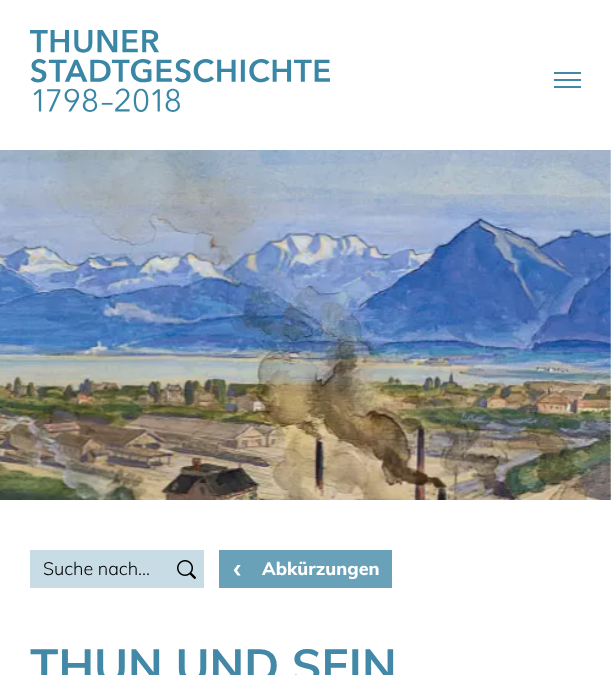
async function draw(canvas) {
  canvas.width = 611;
  canvas.height = 675;
  const ctx = canvas.getContext('2d');
  ctx.miterLimit = 4;
  ctx.fontKerning = 'normal';
  function label(s, x, y, font, color) {
    ctx.font = font;
    ctx.fillStyle = color;
    ctx.fillText(s, x, y);
  }
  function rect(x, y, w, h, color) {
    ctx.fillStyle = color;
    ctx.fillRect(x, y, w, h);
  }
  async function image(src, x, y, w, h) {
    const img = new Image();
    img.src = src;
    await img.decode();
    ctx.drawImage(img, x, y, w, h);
  }

  rect(0, 0, 611, 675, '#fff');
  await image('assets/img1.png', 30, 30, 300, 82);
  rect(554, 72, 27, 2, '#4389a7');
  rect(554, 79, 27, 2, '#4389a7');
  rect(554, 86, 27, 2, '#4389a7');
  await image('assets/img2.png', 0, 150, 611, 350);
  rect(30, 550, 174, 38, '#c7dce5');
  await image('assets/img3.png', 177, 560, 19, 19);
  label('Suche nach...', 43, 575, '300 18px Muli', '#000');
  rect(219, 550, 173, 38, '#69a1b9');
  label('‹', 233, 578, 'bold 29px Muli', '#fff');
  label('Abkürzungen', 262, 575, '800 18px Muli', '#fff');
  label('THUN UND SEIN', 30, 682, 'bold 46px Muli', '#4389a7');
}

draw(document.querySelector('canvas'));
